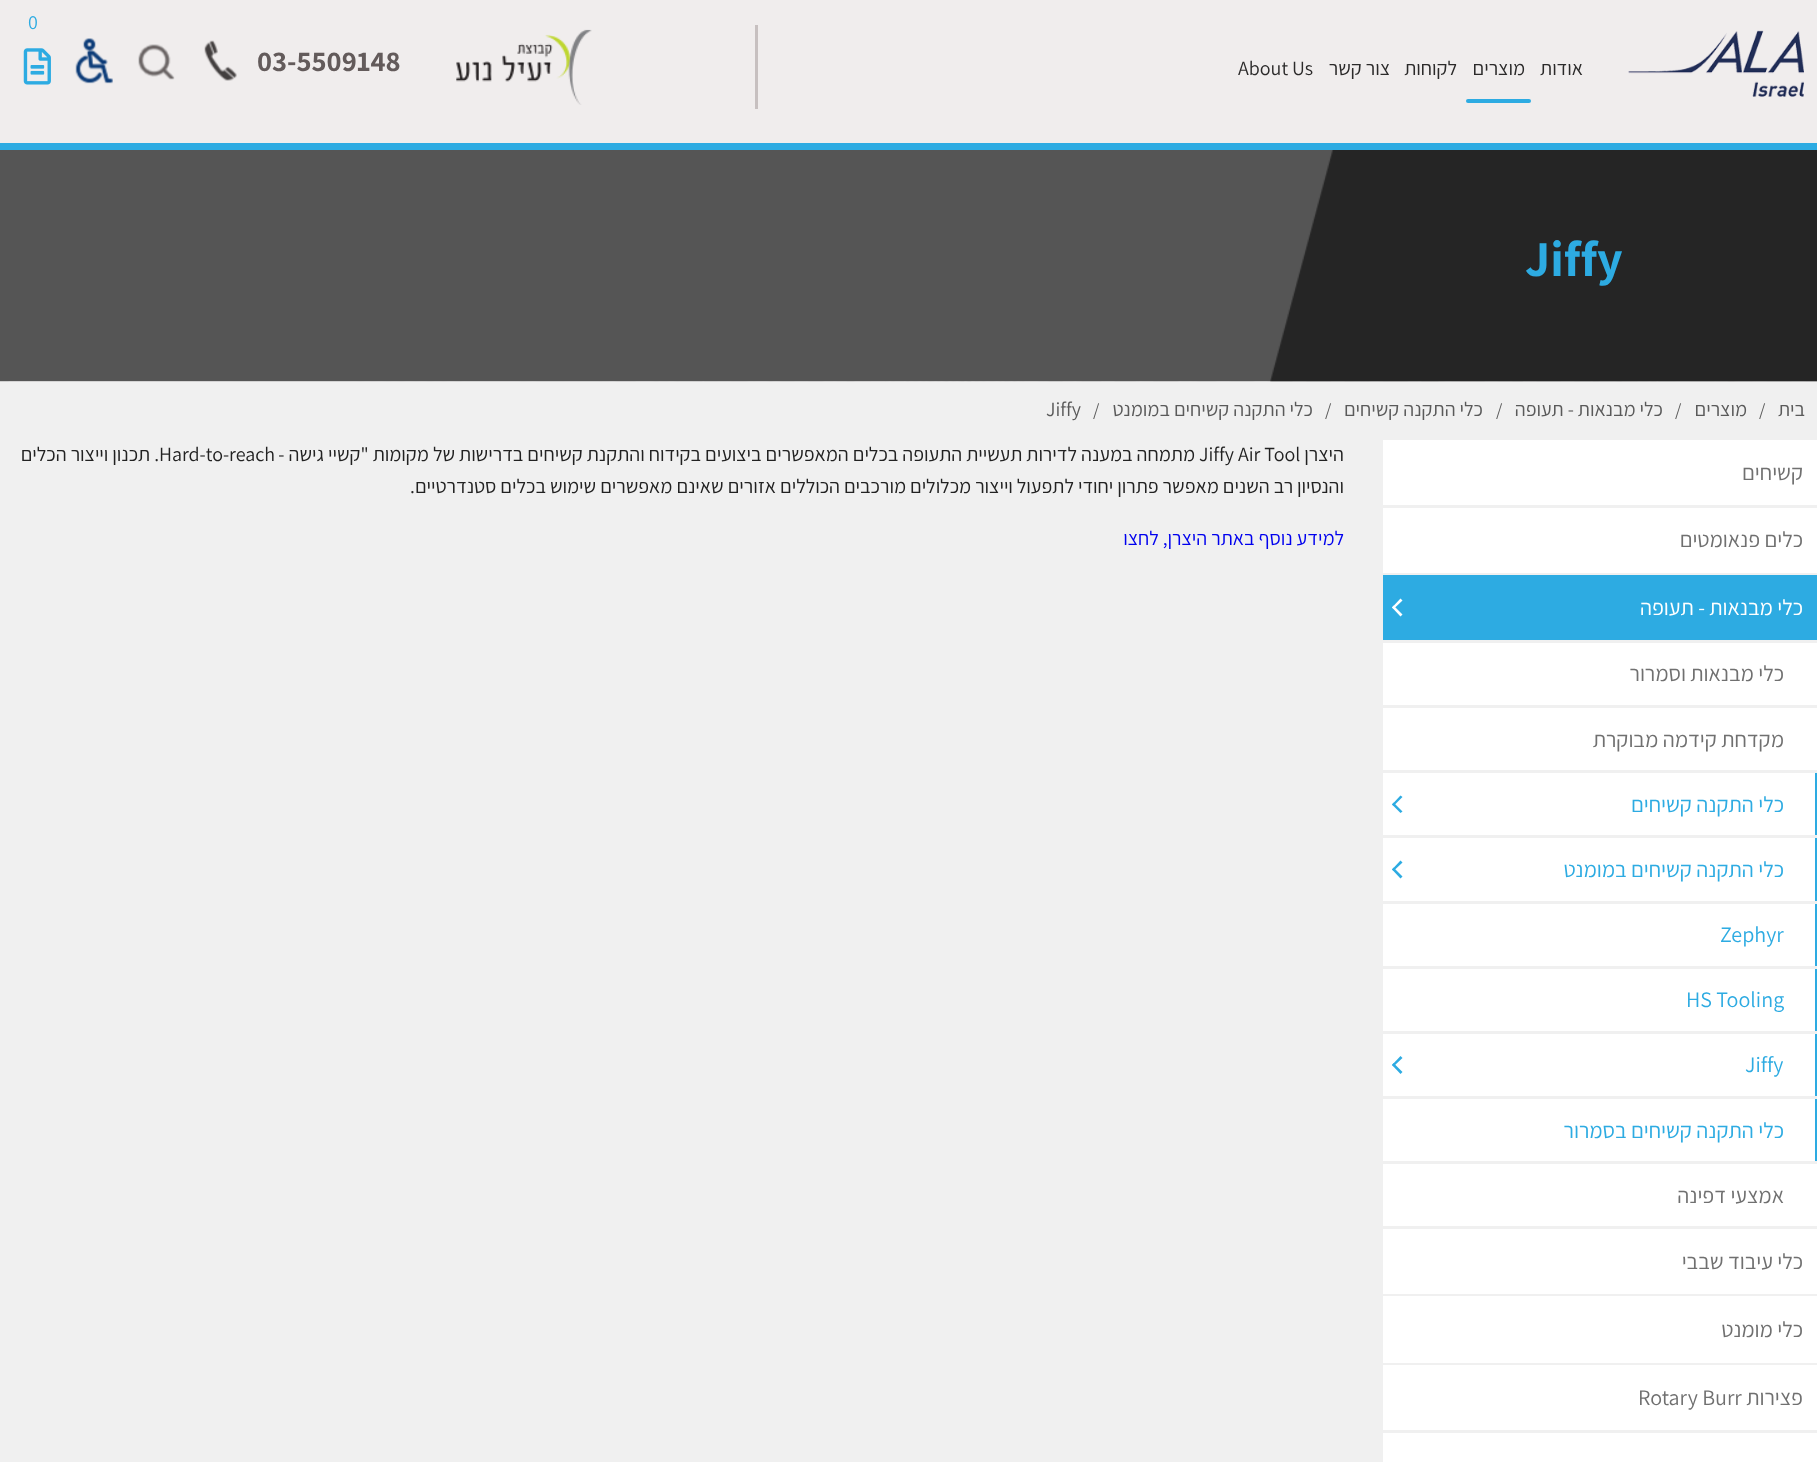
async function draw(canvas) {
  canvas.width = 1817;
  canvas.height = 1462;
  const ctx = canvas.getContext('2d');
  ctx.miterLimit = 4;
  ctx.fontKerning = 'normal';
  function label(s, x, y, font, color) {
    ctx.font = font;
    ctx.fillStyle = color;
    ctx.fillText(s, x, y);
  }
  function rect(x, y, w, h, color) {
    ctx.fillStyle = color;
    ctx.fillRect(x, y, w, h);
  }
  function roundedRect(x, y, w, h, r, color) {
    ctx.fillStyle = color;
    ctx.beginPath();
    ctx.roundRect(x, y, w, h, r);
    ctx.fill();
  }
  async function image(src, x, y, w, h) {
    const img = new Image();
    img.src = src;
    await img.decode();
    ctx.drawImage(img, x, y, w, h);
  }
  let path;

  rect(0, 0, 1817, 1462, '#f0f0f0');
  rect(0, 0, 1817, 143, '#f0eded');
  rect(0, 143, 1817, 7, '#2dabe2');
  await image('assets/img1.png', 1628, 30, 176, 67);
  ctx.direction = 'rtl';
  label('אודות', 1583, 75, '20px Assistant', '#2b2a2a');
  label('מוצרים', 1525, 75, '20px Assistant', '#2b2a2a');
  roundedRect(1466, 99, 65, 4, 2, '#2dabe2');
  label('לקוחות', 1457, 75, '20px Assistant', '#2b2a2a');
  label('צור קשר', 1390, 75, '20px Assistant', '#2b2a2a');
  ctx.direction = 'ltr';
  label('About Us', 1238, 75, '20px Assistant', '#2b2a2a');
  label('0', 28, 29, '20px Assistant', '#2dabe2');
  await image('assets/img2.png', 23, 48, 28, 37);
  rect(755, 25, 3, 84, '#c7c0c0');
  await image('assets/img3.png', 456, 29, 136, 76);
  label('03-5509148', 257, 71, 'bold 28.75px Assistant', '#635b5b');
  await image('assets/img4.png', 204, 40, 33, 41);
  await image('assets/img5.png', 138, 44, 37, 36);
  await image('assets/img6.png', 75, 38, 38, 46);
  rect(0, 150, 1817, 231, '#555');
  await image('assets/img8.png', 0, 381, 1817, 1);
  await image('assets/img7.png', 1270, 150, 547, 232);
  label('Jiffy', 1525, 276, 'bold 50px Assistant', '#2dabe2');
  ctx.direction = 'rtl';
  label('בית', 1805, 416, '20px Assistant', '#5a5a5a');
  ctx.direction = 'ltr';
  label('/', 1759, 416, '18px Assistant', '#5a5a5a');
  ctx.direction = 'rtl';
  label('מוצרים', 1747, 416, '20px Assistant', '#5a5a5a');
  ctx.direction = 'ltr';
  label('/', 1675, 416, '18px Assistant', '#5a5a5a');
  ctx.direction = 'rtl';
  label('כלי מבנאות - תעופה', 1663, 416, '20px Assistant', '#5a5a5a');
  ctx.direction = 'ltr';
  label('/', 1496, 416, '18px Assistant', '#5a5a5a');
  ctx.direction = 'rtl';
  label('כלי התקנה קשיחים', 1483, 416, '20px Assistant', '#5a5a5a');
  ctx.direction = 'ltr';
  label('/', 1325, 416, '18px Assistant', '#5a5a5a');
  ctx.direction = 'rtl';
  label('כלי התקנה קשיחים במומנט', 1313, 416, '20px Assistant', '#5a5a5a');
  ctx.direction = 'ltr';
  label('/', 1093, 416, '18px Assistant', '#5a5a5a');
  label('Jiffy', 1046, 416, '20px Assistant', '#5a5a5a');
  rect(1383, 440, 434, 65, '#fff');
  ctx.direction = 'rtl';
  label('קשיחים', 1803, 480, '22px Assistant', '#707070');
  rect(1383, 508, 434, 65, '#fff');
  label('כלים פנאומטים', 1803, 547, '22px Assistant', '#707070');
  rect(1383, 575, 434, 65, '#2dabe2');
  label('כלי מבנאות - תעופה', 1803, 615, '22px Assistant', '#fff');
  path = new Path2D('M1392 607.5L1400.5 598.5L1402.5 600.5L1393.5 609Z');
  ctx.fill(path);
  path = new Path2D('M1392 607.5L1393.5 605.5L1402.5 614.5L1400.5 616.5Z');
  ctx.fill(path);
  rect(1383, 643, 434, 62, '#fff');
  label('כלי מבנאות וסמרור', 1784, 681, '22px Assistant', '#707070');
  rect(1383, 708, 434, 62, '#fff');
  label('מקדחת קידמה מבוקרת', 1784, 747, '22px Assistant', '#707070');
  rect(1383, 773, 432, 62, '#fff');
  rect(1815, 773, 2, 62, '#2dabe2');
  label('כלי התקנה קשיחים', 1784, 812, '22px Assistant', '#2dabe2');
  path = new Path2D('M1392 804.5L1400.5 795.5L1402.5 797L1393.5 806Z');
  ctx.fill(path);
  path = new Path2D('M1392 804.5L1393.5 802.5L1402.5 811.5L1400.5 813Z');
  ctx.fill(path);
  rect(1383, 838, 432, 63, '#fff');
  rect(1815, 838, 2, 63, '#2dabe2');
  label('כלי התקנה קשיחים במומנט', 1784, 877, '22px Assistant', '#2dabe2');
  path = new Path2D('M1392 869.5L1400.5 860.5L1402.5 862.5L1393.5 871Z');
  ctx.fill(path);
  path = new Path2D('M1392 869.5L1393.5 867.5L1402.5 876.5L1400.5 878.5Z');
  ctx.fill(path);
  rect(1383, 904, 432, 62, '#fff');
  rect(1815, 904, 2, 62, '#2dabe2');
  ctx.direction = 'ltr';
  label('Zephyr', 1720, 942, '22px Assistant', '#2dabe2');
  rect(1383, 969, 432, 62, '#fff');
  rect(1815, 969, 2, 62, '#2dabe2');
  label('HS Tooling', 1686, 1007, '22px Assistant', '#2dabe2');
  rect(1383, 1034, 432, 62, '#fff');
  rect(1815, 1034, 2, 62, '#2dabe2');
  label('Jiffy', 1745, 1072, '22px Assistant', '#2dabe2');
  path = new Path2D('M1392 1065L1400.5 1056L1402.5 1058L1393.5 1066.5Z');
  ctx.fill(path);
  path = new Path2D('M1392 1065L1393.5 1063L1402.5 1072L1400.5 1074Z');
  ctx.fill(path);
  rect(1383, 1099, 432, 62, '#fff');
  rect(1815, 1099, 2, 62, '#2dabe2');
  ctx.direction = 'rtl';
  label('כלי התקנה קשיחים בסמרור', 1784, 1138, '22px Assistant', '#2dabe2');
  rect(1383, 1164, 434, 62, '#fff');
  label('אמצעי דפינה', 1784, 1203, '22px Assistant', '#707070');
  rect(1383, 1229, 434, 65, '#fff');
  label('כלי עיבוד שבבי', 1803, 1269, '22px Assistant', '#707070');
  rect(1383, 1296, 434, 67, '#fff');
  label('כלי מומנט', 1803, 1337, '22px Assistant', '#707070');
  rect(1383, 1365, 434, 65, '#fff');
  label('פצירות', 1803, 1405, '22px Assistant', '#707070');
  ctx.direction = 'ltr';
  label('Rotary Burr', 1638, 1405, '22px Assistant', '#707070');
  rect(1383, 1433, 434, 29, '#fff');
  ctx.direction = 'rtl';
  label('היצרן', 1344, 461, '20px Assistant', '#222');
  ctx.direction = 'ltr';
  label('Jiffy Air Tool', 1199, 461, '20px Assistant', '#222');
  ctx.direction = 'rtl';
  label('מתמחה במענה לדירות תעשיית התעופה בכלים המאפשרים ביצועים בקידוח והתקנת קשיחים בדרישות של מקומות "קשיי גישה -', 1195, 461, '20px Assistant', '#222');
  ctx.direction = 'ltr';
  label('Hard-to-reach', 159, 461, '20px Assistant', '#222');
  ctx.direction = 'rtl';
  label('. תכנון וייצור הכלים', 159, 461, '20px Assistant', '#222');
  label('והנסיון רב השנים מאפשר פתרון יחודי לתפעול וייצור מכלולים מורכבים הכוללים אזורים שאינם מאפשרים שימוש בכלים סטנדרטיים.', 1344, 493, '20px Assistant', '#222');
  label('למידע נוסף באתר היצרן, לחצו', 1344, 545, '20px Assistant', '#00e');
}

draw(document.querySelector('canvas'));
